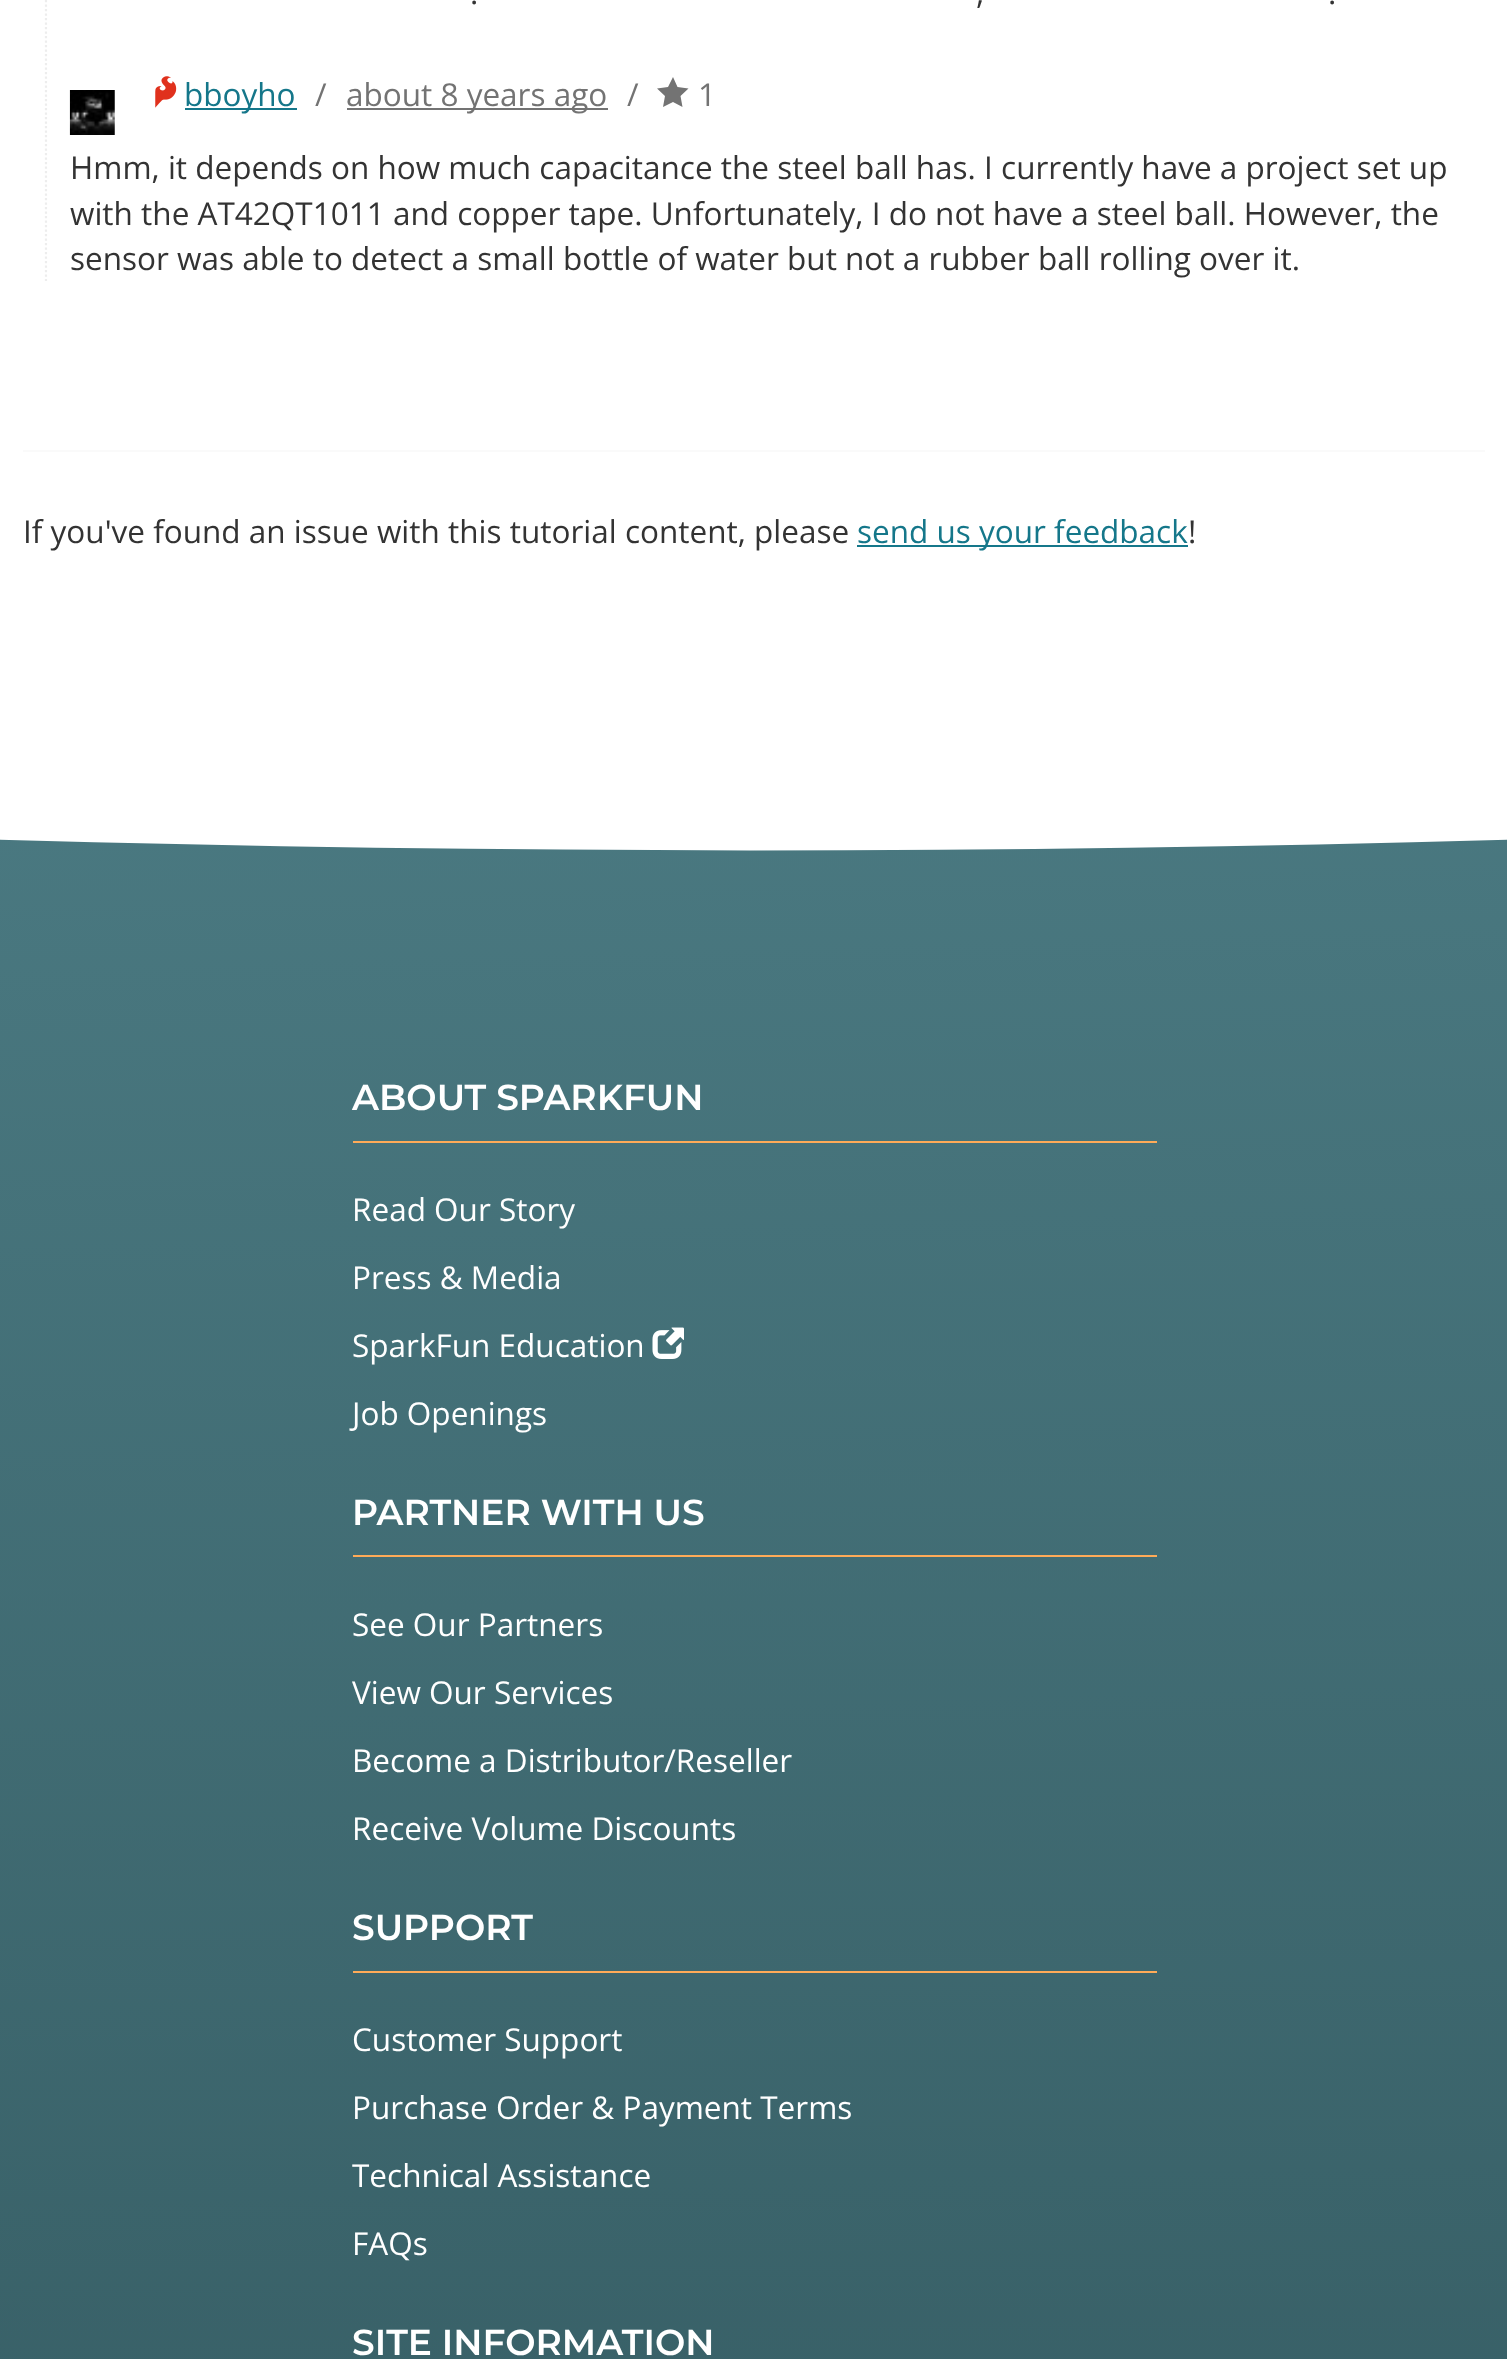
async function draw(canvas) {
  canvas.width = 1507;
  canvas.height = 2359;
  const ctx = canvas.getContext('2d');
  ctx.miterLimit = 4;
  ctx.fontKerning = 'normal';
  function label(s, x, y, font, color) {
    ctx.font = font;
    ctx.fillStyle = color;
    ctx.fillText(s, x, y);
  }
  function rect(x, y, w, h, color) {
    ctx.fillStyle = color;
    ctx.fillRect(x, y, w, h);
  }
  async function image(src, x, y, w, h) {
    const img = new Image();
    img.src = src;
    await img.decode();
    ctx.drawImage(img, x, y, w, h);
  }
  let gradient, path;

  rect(0, 0, 1507, 2359, '#fff');
  path = new Path2D('M46-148.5V281');
  ctx.strokeStyle = '#ededed';
  ctx.lineWidth = 2.2;
  ctx.setLineDash([2.25, 2.25]);
  ctx.stroke(path);
  label('.', 470, 4, '31.5px Open Sans', '#333');
  label(',', 976, 4, '31.5px Open Sans', '#333');
  label('.', 1328, 4, '31.5px Open Sans', '#333');
  await image('assets/img1.png', 69, 90, 46, 45);
  await image('assets/img2.png', 155, 76, 22, 32);
  rect(185, 108, 112, 2, '#15778a');
  label('bboyho', 184, 106, '31.5px Open Sans', '#15778a');
  label('/', 315, 106, '31.5px Open Sans', '#737373');
  rect(347, 108, 261, 2, '#737373');
  label('about 8 years ago', 346, 106, '31.5px Open Sans', '#737373');
  label('/', 627, 106, '31.5px Open Sans', '#737373');
  path = new Path2D('M688.5 88.5L677.5 87L673 77L668 87L657 88.5L665 96L663 107L673 102L682.5 107L680.5 96Z');
  ctx.fill(path);
  label('1', 698, 106, '31.5px Open Sans', '#737373');
  label('Hmm, it depends on how much capacitance the steel ball has. I currently have a project set up', 70, 179, '31.5px Open Sans', '#333');
  label('with the AT42QT1011 and copper tape. Unfortunately, I do not have a steel ball. However, the', 70, 225, '31.5px Open Sans', '#333');
  label('sensor was able to detect a small bottle of water but not a rubber ball rolling over it.', 70, 270, '31.5px Open Sans', '#333');
  rect(23, 450, 1462, 2, '#fafafa');
  label('If you\'ve found an issue with this tutorial content, please', 23, 543, '31.5px Open Sans', '#333');
  rect(857, 545, 331, 2, '#15778a');
  label('send us your feedback', 857, 543, '31.5px Open Sans', '#15778a');
  label('!', 1188, 543, '31.5px Open Sans', '#333');
  gradient = ctx.createLinearGradient(703, 745, 804, 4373);
  gradient.addColorStop(0, '#4a7981');
  gradient.addColorStop(1, '#24444a');
  ctx.fillStyle = gradient;
  ctx.fillRect(0, 839, 1507, 1520);
  ctx.fillStyle = '#fff';
  path = new Path2D('M-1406 763C31 880 1478 879 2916 763Z');
  ctx.fill(path);
  rect(353, 1141, 804, 2, '#ffab58');
  label('ABOUT SPARKFUN', 352, 1110, '600 36px Montserrat', '#fff');
  label('Read Our Story', 352, 1221, '31.5px Open Sans', '#fff');
  label('Press & Media', 352, 1289, '31.5px Open Sans', '#fff');
  label('SparkFun Education', 352, 1357, '31.5px Open Sans', '#fff');
  await image('assets/img3.png', 652, 1327, 32, 32);
  label('Job Openings', 352, 1425, '31.5px Open Sans', '#fff');
  rect(353, 1555, 804, 2, '#ffab58');
  label('PARTNER WITH US', 352, 1525, '600 36px Montserrat', '#fff');
  label('See Our Partners', 352, 1636, '31.5px Open Sans', '#fff');
  label('View Our Services', 352, 1704, '31.5px Open Sans', '#fff');
  label('Become a Distributor/Reseller', 352, 1772, '31.5px Open Sans', '#fff');
  label('Receive Volume Discounts', 352, 1840, '31.5px Open Sans', '#fff');
  rect(353, 1971, 804, 2, '#ffab58');
  label('SUPPORT', 352, 1940, '600 36px Montserrat', '#fff');
  label('Customer Support', 352, 2051, '31.5px Open Sans', '#fff');
  label('Purchase Order & Payment Terms', 352, 2119, '31.5px Open Sans', '#fff');
  label('Technical Assistance', 352, 2187, '31.5px Open Sans', '#fff');
  label('FAQs', 352, 2255, '31.5px Open Sans', '#fff');
  label('SITE INFORMATION', 352, 2355, '600 36px Montserrat', '#fff');
}

draw(document.querySelector('canvas'));
